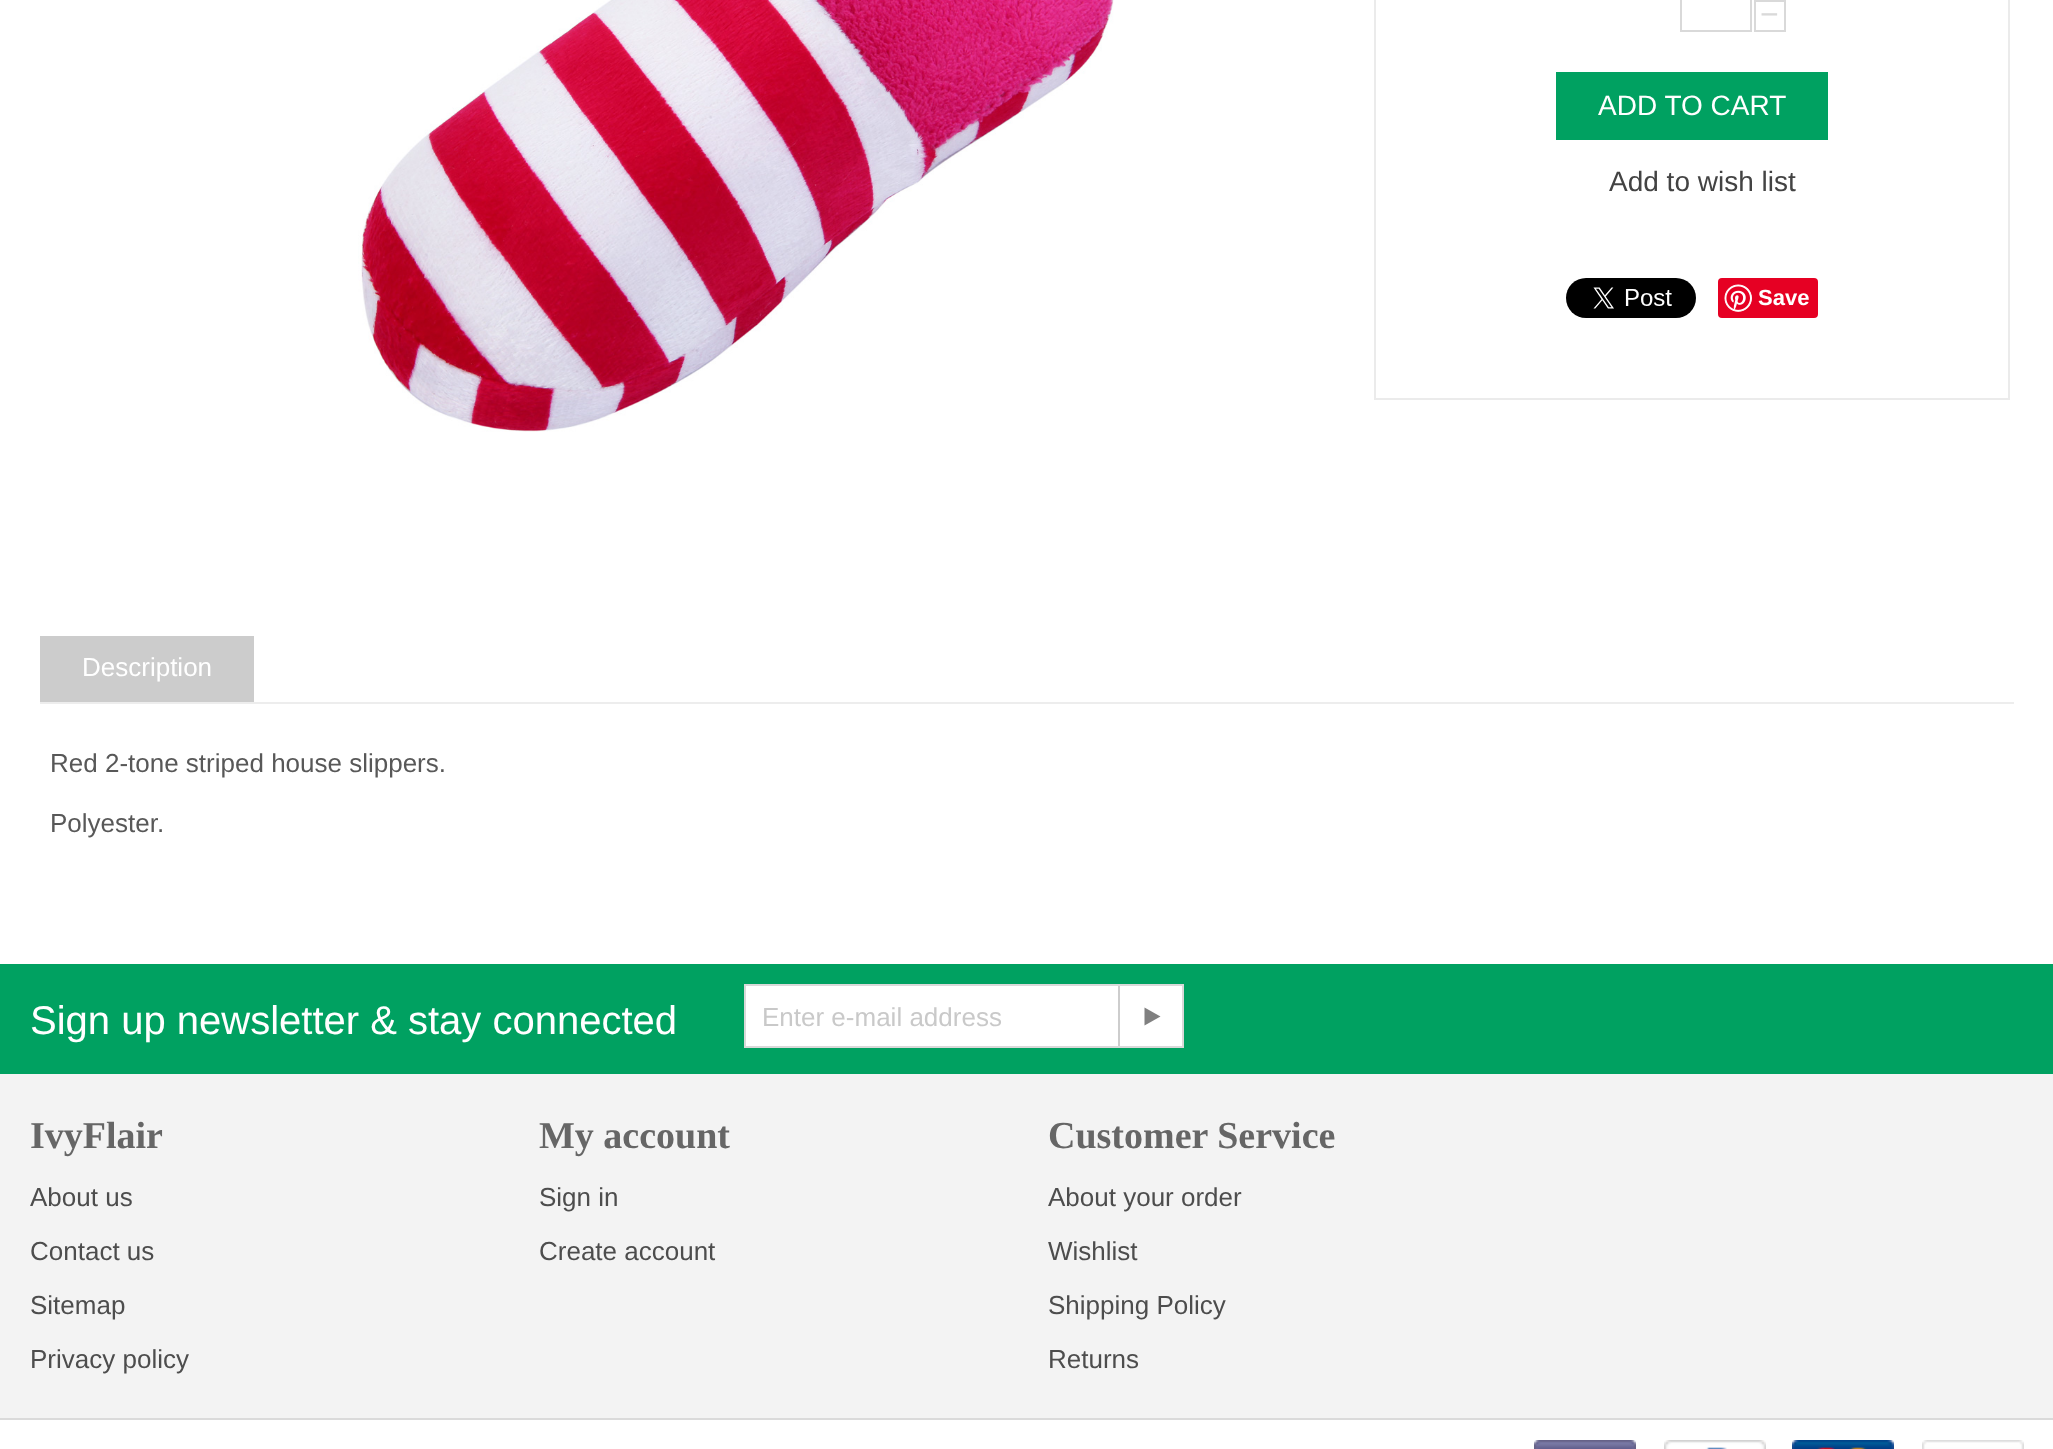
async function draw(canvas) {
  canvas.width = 2053;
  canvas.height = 1449;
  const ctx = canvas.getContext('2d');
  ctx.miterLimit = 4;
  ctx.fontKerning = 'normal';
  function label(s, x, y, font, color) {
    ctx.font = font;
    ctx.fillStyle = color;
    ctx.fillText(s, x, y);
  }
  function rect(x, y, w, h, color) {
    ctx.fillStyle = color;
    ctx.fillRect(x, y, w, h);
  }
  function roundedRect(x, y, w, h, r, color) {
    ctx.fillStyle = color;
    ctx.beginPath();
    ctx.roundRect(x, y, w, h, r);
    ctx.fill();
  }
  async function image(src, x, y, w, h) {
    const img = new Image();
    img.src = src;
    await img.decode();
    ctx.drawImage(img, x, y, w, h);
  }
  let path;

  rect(0, 0, 2053, 1449, '#fff');
  await image('assets/img1.png', 358, 0, 756, 432);
  ctx.strokeStyle = '#ebebeb';
  ctx.lineWidth = 2;
  ctx.strokeRect(1375, -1, 634, 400);
  ctx.strokeStyle = '#d9d9d9';
  ctx.strokeRect(1681, -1, 70, 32);
  ctx.strokeRect(1755, 1, 30, 30);
  label('−', 1760, 25, '32px Liberation Sans', '#d9d9d9');
  rect(1556, 72, 272, 68, '#00a161');
  label('ADD TO CART', 1598, 115, '28px Liberation Sans', '#fff');
  label('Add to wish list', 1609, 191, '28px Liberation Sans', '#434343');
  await image('assets/img2.png', 1566, 278, 130, 40);
  roundedRect(1718, 278, 100, 40, 4, '#e60023');
  await image('assets/img3.png', 1724, 284, 28, 28);
  label('Save', 1758, 305, 'bold 22px Liberation Sans', '#fff');
  rect(40, 702, 1974, 2, '#ededed');
  rect(40, 636, 214, 66, '#ccc');
  label('Description', 82, 676, '26px Liberation Sans', '#fff');
  label('Red 2-tone striped house slippers.', 50, 772, '26px Liberation Sans', '#585858');
  label('Polyester.', 50, 832, '26px Liberation Sans', '#585858');
  rect(0, 1074, 2053, 344, '#f3f3f3');
  rect(0, 964, 2053, 110, '#00a161');
  label('Sign up newsletter & stay connected', 30, 1034, '40px Liberation Sans', '#fff');
  ctx.beginPath();
  ctx.rect(745, 985, 438, 62);
  ctx.fill();
  ctx.stroke();
  label('Enter e-mail address', 762, 1026, '26px Liberation Sans', '#c9c9c9');
  rect(1118, 986, 2, 60, '#cdcdcd');
  ctx.fillStyle = '#808080';
  path = new Path2D('M1144.5 1007.5L1160.5 1016.5L1144.5 1025.5Z');
  ctx.fill(path);
  label('IvyFlair', 30, 1148, 'bold 38px Liberation Serif', '#666');
  label('About us', 30, 1206, '26px Liberation Sans', '#4d4d4d');
  label('Contact us', 30, 1260, '26px Liberation Sans', '#4d4d4d');
  label('Sitemap', 30, 1314, '26px Liberation Sans', '#4d4d4d');
  label('Privacy policy', 30, 1368, '26px Liberation Sans', '#4d4d4d');
  label('My account', 539, 1148, 'bold 38px Liberation Serif', '#666');
  label('Sign in', 539, 1206, '26px Liberation Sans', '#4d4d4d');
  label('Create account', 539, 1260, '26px Liberation Sans', '#4d4d4d');
  label('Customer Service', 1048, 1148, 'bold 38px Liberation Serif', '#666');
  label('About your order', 1048, 1206, '26px Liberation Sans', '#4d4d4d');
  label('Wishlist', 1048, 1260, '26px Liberation Sans', '#4d4d4d');
  label('Shipping Policy', 1048, 1314, '26px Liberation Sans', '#4d4d4d');
  label('Returns', 1048, 1368, '26px Liberation Sans', '#4d4d4d');
  rect(0, 1418, 2053, 2, '#dadada');
  await image('assets/img4.png', 1534, 1440, 102, 9);
  await image('assets/img5.png', 1664, 1440, 102, 9);
  await image('assets/img6.png', 1792, 1440, 102, 9);
  await image('assets/img7.png', 1922, 1440, 102, 9);
}

draw(document.querySelector('canvas'));
